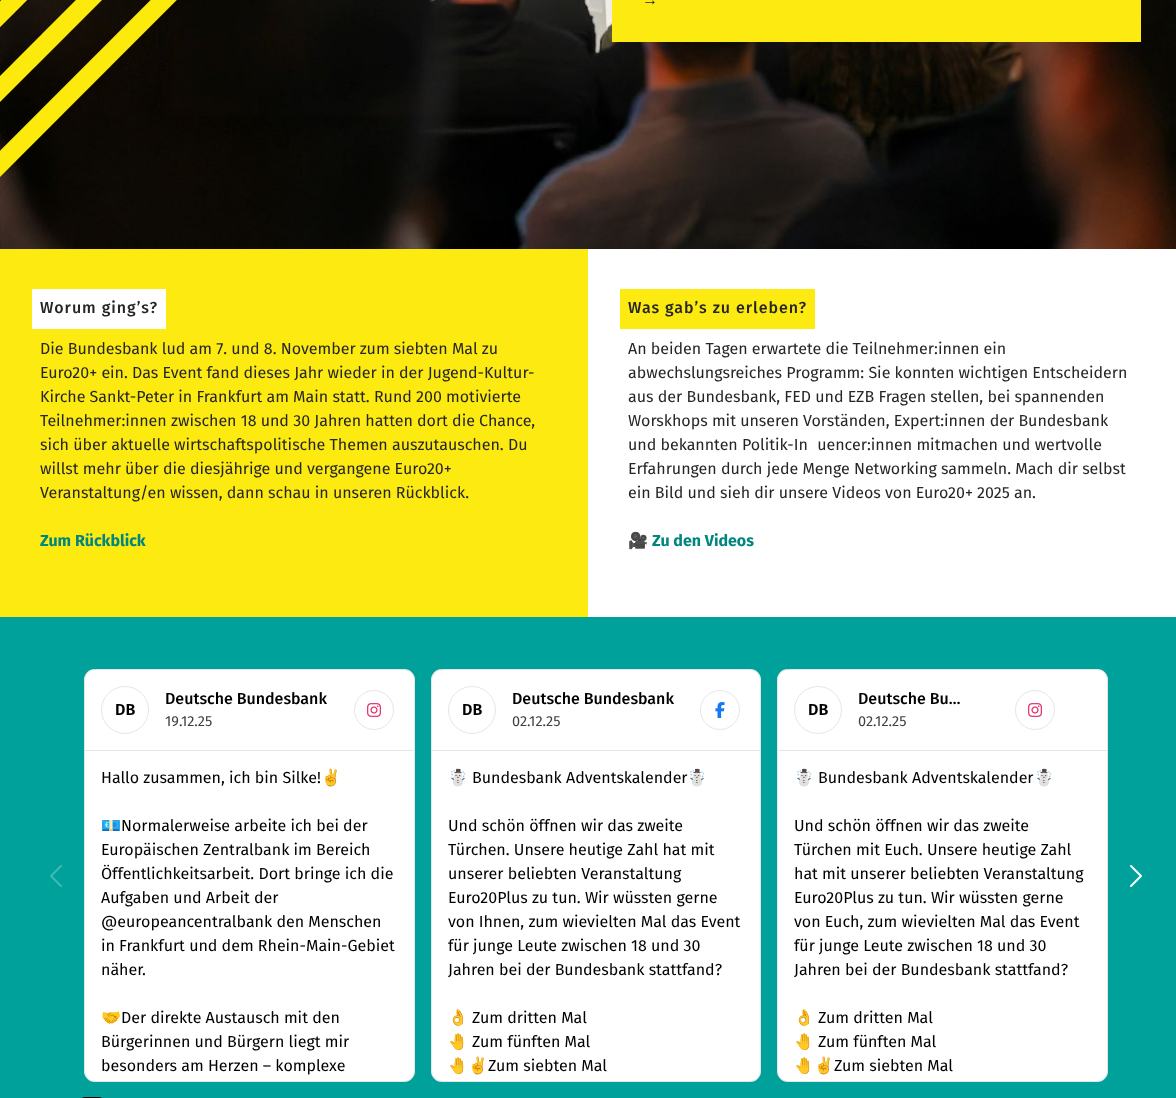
async function draw(canvas) {
  canvas.width = 1176;
  canvas.height = 1098;
  const ctx = canvas.getContext('2d');
  ctx.miterLimit = 4;
  ctx.fontKerning = 'normal';
  function label(s, x, y, font, color) {
    ctx.font = font;
    ctx.fillStyle = color;
    ctx.fillText(s, x, y);
  }
  function rect(x, y, w, h, color) {
    ctx.fillStyle = color;
    ctx.fillRect(x, y, w, h);
  }
  function roundedRect(x, y, w, h, r, color) {
    ctx.fillStyle = color;
    ctx.beginPath();
    ctx.roundRect(x, y, w, h, r);
    ctx.fill();
  }
  async function image(src, x, y, w, h) {
    const img = new Image();
    img.src = src;
    await img.decode();
    ctx.drawImage(img, x, y, w, h);
  }
  let path;

  rect(0, 0, 1176, 1098, '#fff');
  await image('assets/img2.png', 0, 0, 1176, 249);
  await image('assets/img1.png', 0, 0, 177, 177);
  rect(612, 0, 529, 42, '#fcea10');
  label('→', 642, 5, '16px Liberation Sans', '#262626');
  rect(0, 249, 588, 368, '#fcea10');
  rect(32, 289, 134, 40, '#fff');
  ctx.letterSpacing = '1px';
  label('Worum ging’s?', 40, 313, '500 16px Fira Sans', '#262626');
  ctx.letterSpacing = '0px';
  label('Die Bundesbank lud am 7. und 8. November zum siebten Mal zu', 40, 354, '16px Fira Sans', '#262626');
  label('Euro20+ ein. Das Event fand dieses Jahr wieder in der Jugend-Kultur-', 40, 378, '16px Fira Sans', '#262626');
  label('Kirche Sankt-Peter in Frankfurt am Main statt. Rund 200 motivierte', 40, 402, '16px Fira Sans', '#262626');
  label('Teilnehmer:innen zwischen 18 und 30 Jahren hatten dort die Chance,', 40, 426, '16px Fira Sans', '#262626');
  label('sich über aktuelle wirtschaftspolitische Themen auszutauschen. Du', 40, 450, '16px Fira Sans', '#262626');
  label('willst mehr über die diesjährige und vergangene Euro20+', 40, 474, '16px Fira Sans', '#262626');
  label('Veranstaltung/en wissen, dann schau in unseren Rückblick.', 40, 498, '16px Fira Sans', '#262626');
  label('Zum Rückblick', 40, 546, 'bold 16px Fira Sans', '#00857f');
  rect(620, 289, 195, 40, '#fcea10');
  ctx.letterSpacing = '1px';
  label('Was gab’s zu erleben?', 628, 313, '500 16px Fira Sans', '#262626');
  ctx.letterSpacing = '0px';
  label('An beiden Tagen erwartete die Teilnehmer:innen ein', 628, 354, '16px Fira Sans', '#262626');
  label('abwechslungsreiches Programm: Sie konnten wichtigen Entscheidern', 628, 378, '16px Fira Sans', '#262626');
  label('aus der Bundesbank, FED und EZB Fragen stellen, bei spannenden', 628, 402, '16px Fira Sans', '#262626');
  label('Worskhops mit unseren Vorständen, Expert:innen der Bundesbank', 628, 426, '16px Fira Sans', '#262626');
  label('und bekannten Politik-Influencer:innen mitmachen und wertvolle', 628, 450, '16px Fira Sans', '#262626');
  label('Erfahrungen durch jede Menge Networking sammeln. Mach dir selbst', 628, 474, '16px Fira Sans', '#262626');
  label('ein Bild und sieh dir unsere Videos von Euro20+ 2025 an.', 628, 498, '16px Fira Sans', '#262626');
  label('🎥', 628, 546, 'bold 16px Noto Color Emoji', '#00857f');
  label('Zu den Videos', 652, 546, 'bold 16px Fira Sans', '#00857f');
  rect(0, 617, 1176, 481, '#00a19a');
  path = new Path2D('M61 886L51 876L61 866');
  ctx.strokeStyle = '#40b9b3';
  ctx.lineWidth = 2;
  ctx.lineCap = 'round';
  ctx.lineJoin = 'round';
  ctx.stroke(path);
  roundedRect(84, 669, 331, 413, 11, '#fff');
  ctx.beginPath();
  ctx.roundRect(84.5, 669.5, 330, 412, 10.5);
  ctx.strokeStyle = '#ffffff26';
  ctx.lineWidth = 1;
  ctx.lineJoin = 'miter';
  ctx.stroke();
  ctx.beginPath();
  ctx.roundRect(84.5, 669.5, 330, 412, 10.5);
  ctx.strokeStyle = '#0000001a';
  ctx.stroke();
  rect(85, 750, 329, 1, '#e6e6e6');
  label('DB', 115, 715, '600 16px Fira Sans', '#000');
  ctx.beginPath();
  ctx.arc(125, 710, 23.5, 0, 2 * Math.PI);
  ctx.strokeStyle = '#e6e6e6';
  ctx.stroke();
  label('Deutsche Bundesbank', 165, 704, '500 16px Fira Sans', '#000');
  label('19.12.25', 165, 726, '14.5px Fira Sans', '#404040');
  ctx.beginPath();
  ctx.arc(374, 710, 19.5, 0, 2 * Math.PI);
  ctx.stroke();
  await image('assets/img3.png', 367, 703, 14, 14);
  label('Hallo zusammen, ich bin Silke!', 101, 783, '16px Fira Sans', '#000');
  label('✌️', 321, 783, '16px Noto Color Emoji', '#000');
  label('💶', 101, 831, '16px Noto Color Emoji', '#000');
  label('Normalerweise arbeite ich bei der', 121, 831, '16px Fira Sans', '#000');
  label('Europäischen Zentralbank im Bereich', 101, 855, '16px Fira Sans', '#000');
  label('Öffentlichkeitsarbeit. Dort bringe ich die', 101, 879, '16px Fira Sans', '#000');
  label('Aufgaben und Arbeit der', 101, 903, '16px Fira Sans', '#000');
  label('@europeancentralbank den Menschen', 101, 927, '16px Fira Sans', '#000');
  label('in Frankfurt und dem Rhein-Main-Gebiet', 101, 951, '16px Fira Sans', '#000');
  label('näher.', 101, 975, '16px Fira Sans', '#000');
  label('🤝', 101, 1023, '16px Noto Color Emoji', '#000');
  label('Der direkte Austausch mit den', 121, 1023, '16px Fira Sans', '#000');
  label('Bürgerinnen und Bürgern liegt mir', 101, 1047, '16px Fira Sans', '#000');
  label('besonders am Herzen – komplexe', 101, 1071, '16px Fira Sans', '#000');
  roundedRect(431, 669, 330, 413, 11, '#fff');
  ctx.beginPath();
  ctx.roundRect(431.5, 669.5, 329, 412, 10.5);
  ctx.strokeStyle = '#ffffff26';
  ctx.stroke();
  ctx.beginPath();
  ctx.roundRect(431.5, 669.5, 329, 412, 10.5);
  ctx.strokeStyle = '#0000001a';
  ctx.stroke();
  rect(432, 750, 328, 1, '#e6e6e6');
  label('DB', 462, 715, '600 16px Fira Sans', '#000');
  ctx.beginPath();
  ctx.arc(472, 710, 23.5, 0, 2 * Math.PI);
  ctx.strokeStyle = '#e6e6e6';
  ctx.stroke();
  label('Deutsche Bundesbank', 512, 704, '500 16px Fira Sans', '#000');
  label('02.12.25', 512, 726, '14.5px Fira Sans', '#404040');
  ctx.beginPath();
  ctx.arc(720, 710, 19.5, 0, 2 * Math.PI);
  ctx.stroke();
  await image('assets/img4.png', 715, 702, 10, 16);
  label('☃️', 448, 783, '16px Noto Color Emoji', '#000');
  label('Bundesbank Adventskalender', 472, 783, '16px Fira Sans', '#000');
  label('☃️', 687, 783, '16px Noto Color Emoji', '#000');
  label('Und schön öffnen wir das zweite', 448, 831, '16px Fira Sans', '#000');
  label('Türchen. Unsere heutige Zahl hat mit', 448, 855, '16px Fira Sans', '#000');
  label('unserer beliebten Veranstaltung', 448, 879, '16px Fira Sans', '#000');
  label('Euro20Plus zu tun. Wir wüssten gerne', 448, 903, '16px Fira Sans', '#000');
  label('von Ihnen, zum wievielten Mal das Event', 448, 927, '16px Fira Sans', '#000');
  label('für junge Leute zwischen 18 und 30', 448, 951, '16px Fira Sans', '#000');
  label('Jahren bei der Bundesbank stattfand?', 448, 975, '16px Fira Sans', '#000');
  label('👌', 448, 1023, '16px Noto Color Emoji', '#000');
  label('Zum dritten Mal', 472, 1023, '16px Fira Sans', '#000');
  label('🤚', 448, 1047, '16px Noto Color Emoji', '#000');
  label('Zum fünften Mal', 472, 1047, '16px Fira Sans', '#000');
  label('🤚✌️', 448, 1071, '16px Noto Color Emoji', '#000');
  label('Zum siebten Mal', 488, 1071, '16px Fira Sans', '#000');
  roundedRect(777, 669, 331, 413, 11, '#fff');
  ctx.beginPath();
  ctx.roundRect(777.5, 669.5, 330, 412, 10.5);
  ctx.strokeStyle = '#ffffff26';
  ctx.stroke();
  ctx.beginPath();
  ctx.roundRect(777.5, 669.5, 330, 412, 10.5);
  ctx.strokeStyle = '#0000001a';
  ctx.stroke();
  rect(778, 750, 329, 1, '#e6e6e6');
  label('DB', 808, 715, '600 16px Fira Sans', '#000');
  ctx.beginPath();
  ctx.arc(818, 710, 23.5, 0, 2 * Math.PI);
  ctx.strokeStyle = '#e6e6e6';
  ctx.stroke();
  label('Deutsche Bu…', 858, 704, '500 16px Fira Sans', '#000');
  label('02.12.25', 858, 726, '14.5px Fira Sans', '#404040');
  ctx.beginPath();
  ctx.arc(1035, 710, 19.5, 0, 2 * Math.PI);
  ctx.stroke();
  await image('assets/img3.png', 1028, 703, 14, 14);
  label('☃️', 794, 783, '16px Noto Color Emoji', '#000');
  label('Bundesbank Adventskalender', 818, 783, '16px Fira Sans', '#000');
  label('☃️', 1034, 783, '16px Noto Color Emoji', '#000');
  label('Und schön öffnen wir das zweite', 794, 831, '16px Fira Sans', '#000');
  label('Türchen mit Euch. Unsere heutige Zahl', 794, 855, '16px Fira Sans', '#000');
  label('hat mit unserer beliebten Veranstaltung', 794, 879, '16px Fira Sans', '#000');
  label('Euro20Plus zu tun. Wir wüssten gerne', 794, 903, '16px Fira Sans', '#000');
  label('von Euch, zum wievielten Mal das Event', 794, 927, '16px Fira Sans', '#000');
  label('für junge Leute zwischen 18 und 30', 794, 951, '16px Fira Sans', '#000');
  label('Jahren bei der Bundesbank stattfand?', 794, 975, '16px Fira Sans', '#000');
  label('👌', 794, 1023, '16px Noto Color Emoji', '#000');
  label('Zum dritten Mal', 818, 1023, '16px Fira Sans', '#000');
  label('🤚', 794, 1047, '16px Noto Color Emoji', '#000');
  label('Zum fünften Mal', 818, 1047, '16px Fira Sans', '#000');
  label('🤚✌️', 794, 1071, '16px Noto Color Emoji', '#000');
  label('Zum siebten Mal', 834, 1071, '16px Fira Sans', '#000');
  path = new Path2D('M1131 866L1141 876L1131 886');
  ctx.strokeStyle = '#fff';
  ctx.lineWidth = 2;
  ctx.lineJoin = 'round';
  ctx.stroke(path);
  roundedRect(78, 1097, 28, 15, 14, '#000');
}

draw(document.querySelector('canvas'));
